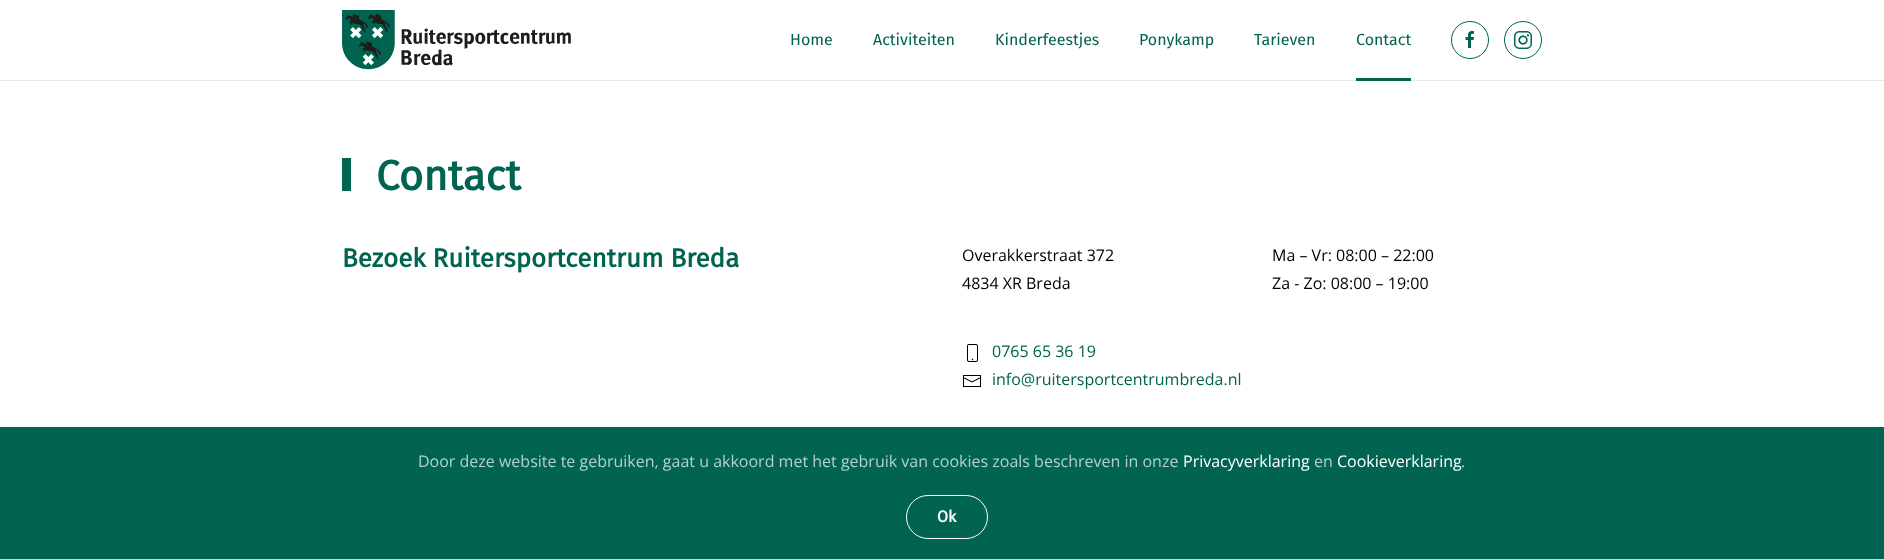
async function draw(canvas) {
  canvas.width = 1884;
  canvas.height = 559;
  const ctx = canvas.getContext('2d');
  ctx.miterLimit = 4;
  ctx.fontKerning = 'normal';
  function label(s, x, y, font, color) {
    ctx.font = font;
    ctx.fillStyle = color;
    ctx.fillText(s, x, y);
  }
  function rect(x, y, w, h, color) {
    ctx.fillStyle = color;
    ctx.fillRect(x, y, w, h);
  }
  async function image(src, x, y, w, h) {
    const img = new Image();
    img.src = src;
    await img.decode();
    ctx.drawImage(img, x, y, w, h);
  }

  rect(0, 0, 1884, 559, '#fff');
  rect(0, 80, 1884, 1, '#e8e8e8');
  await image('assets/img1.png', 342, 10, 229, 60);
  label('Home', 790, 45, '16px Fira Sans', '#006450');
  label('Activiteiten', 873, 45, '16px Fira Sans', '#006450');
  label('Kinderfeestjes', 995, 45, '16px Fira Sans', '#006450');
  label('Ponykamp', 1139, 45, '16px Fira Sans', '#006450');
  label('Tarieven', 1254, 45, '16px Fira Sans', '#006450');
  label('Contact', 1356, 45, '16px Fira Sans', '#006450');
  rect(1356, 78, 55, 3, '#006450');
  ctx.beginPath();
  ctx.arc(1470, 40, 18.5, 0, 2 * Math.PI);
  ctx.strokeStyle = '#006450';
  ctx.stroke();
  await image('assets/img2.png', 1465, 31, 9, 17);
  ctx.beginPath();
  ctx.arc(1523, 40, 18.5, 0, 2 * Math.PI);
  ctx.stroke();
  await image('assets/img3.png', 1514, 31, 18, 18);
  rect(342, 158, 9, 33, '#006450');
  label('Contact', 376, 190, 'bold 42px Fira Sans', '#006450');
  label('Bezoek Ruitersportcentrum Breda', 342, 267, 'bold 26px Fira Sans', '#006450');
  label('Overakkerstraat 372', 962, 261, '16px Open Sans', '#000');
  label('4834 XR Breda', 962, 289, '16px Open Sans', '#000');
  label('Ma – Vr: 08:00 – 22:00', 1272, 261, '16px Open Sans', '#000');
  label('Za - Zo: 08:00 – 19:00', 1272, 289, '16px Open Sans', '#000');
  await image('assets/img4.png', 967, 344, 11, 18);
  label('0765 65 36 19', 992, 357, '16px Open Sans', '#006450');
  await image('assets/img5.png', 963, 375, 18, 12);
  label('info@ruitersportcentrumbreda.nl', 992, 385, '16px Open Sans', '#006450');
  rect(0, 427, 1884, 132, '#006450');
  label('Door deze website te gebruiken, gaat u akkoord met het gebruik van cookies zoals beschreven in onze', 418, 467, '16px Open Sans', '#b3d1cb');
  label('Privacyverklaring', 1183, 467, '16px Open Sans', '#fff');
  label('en', 1314, 467, '16px Open Sans', '#b3d1cb');
  label('Cookieverklaring', 1337, 467, '16px Open Sans', '#fff');
  label('.', 1461, 467, '16px Open Sans', '#b3d1cb');
  ctx.beginPath();
  ctx.roundRect(906.5, 495.5, 81, 43, 21.5);
  ctx.strokeStyle = '#fff';
  ctx.stroke();
  label('Ok', 937, 522, 'bold 16px Fira Sans', '#fff');
}

draw(document.querySelector('canvas'));
